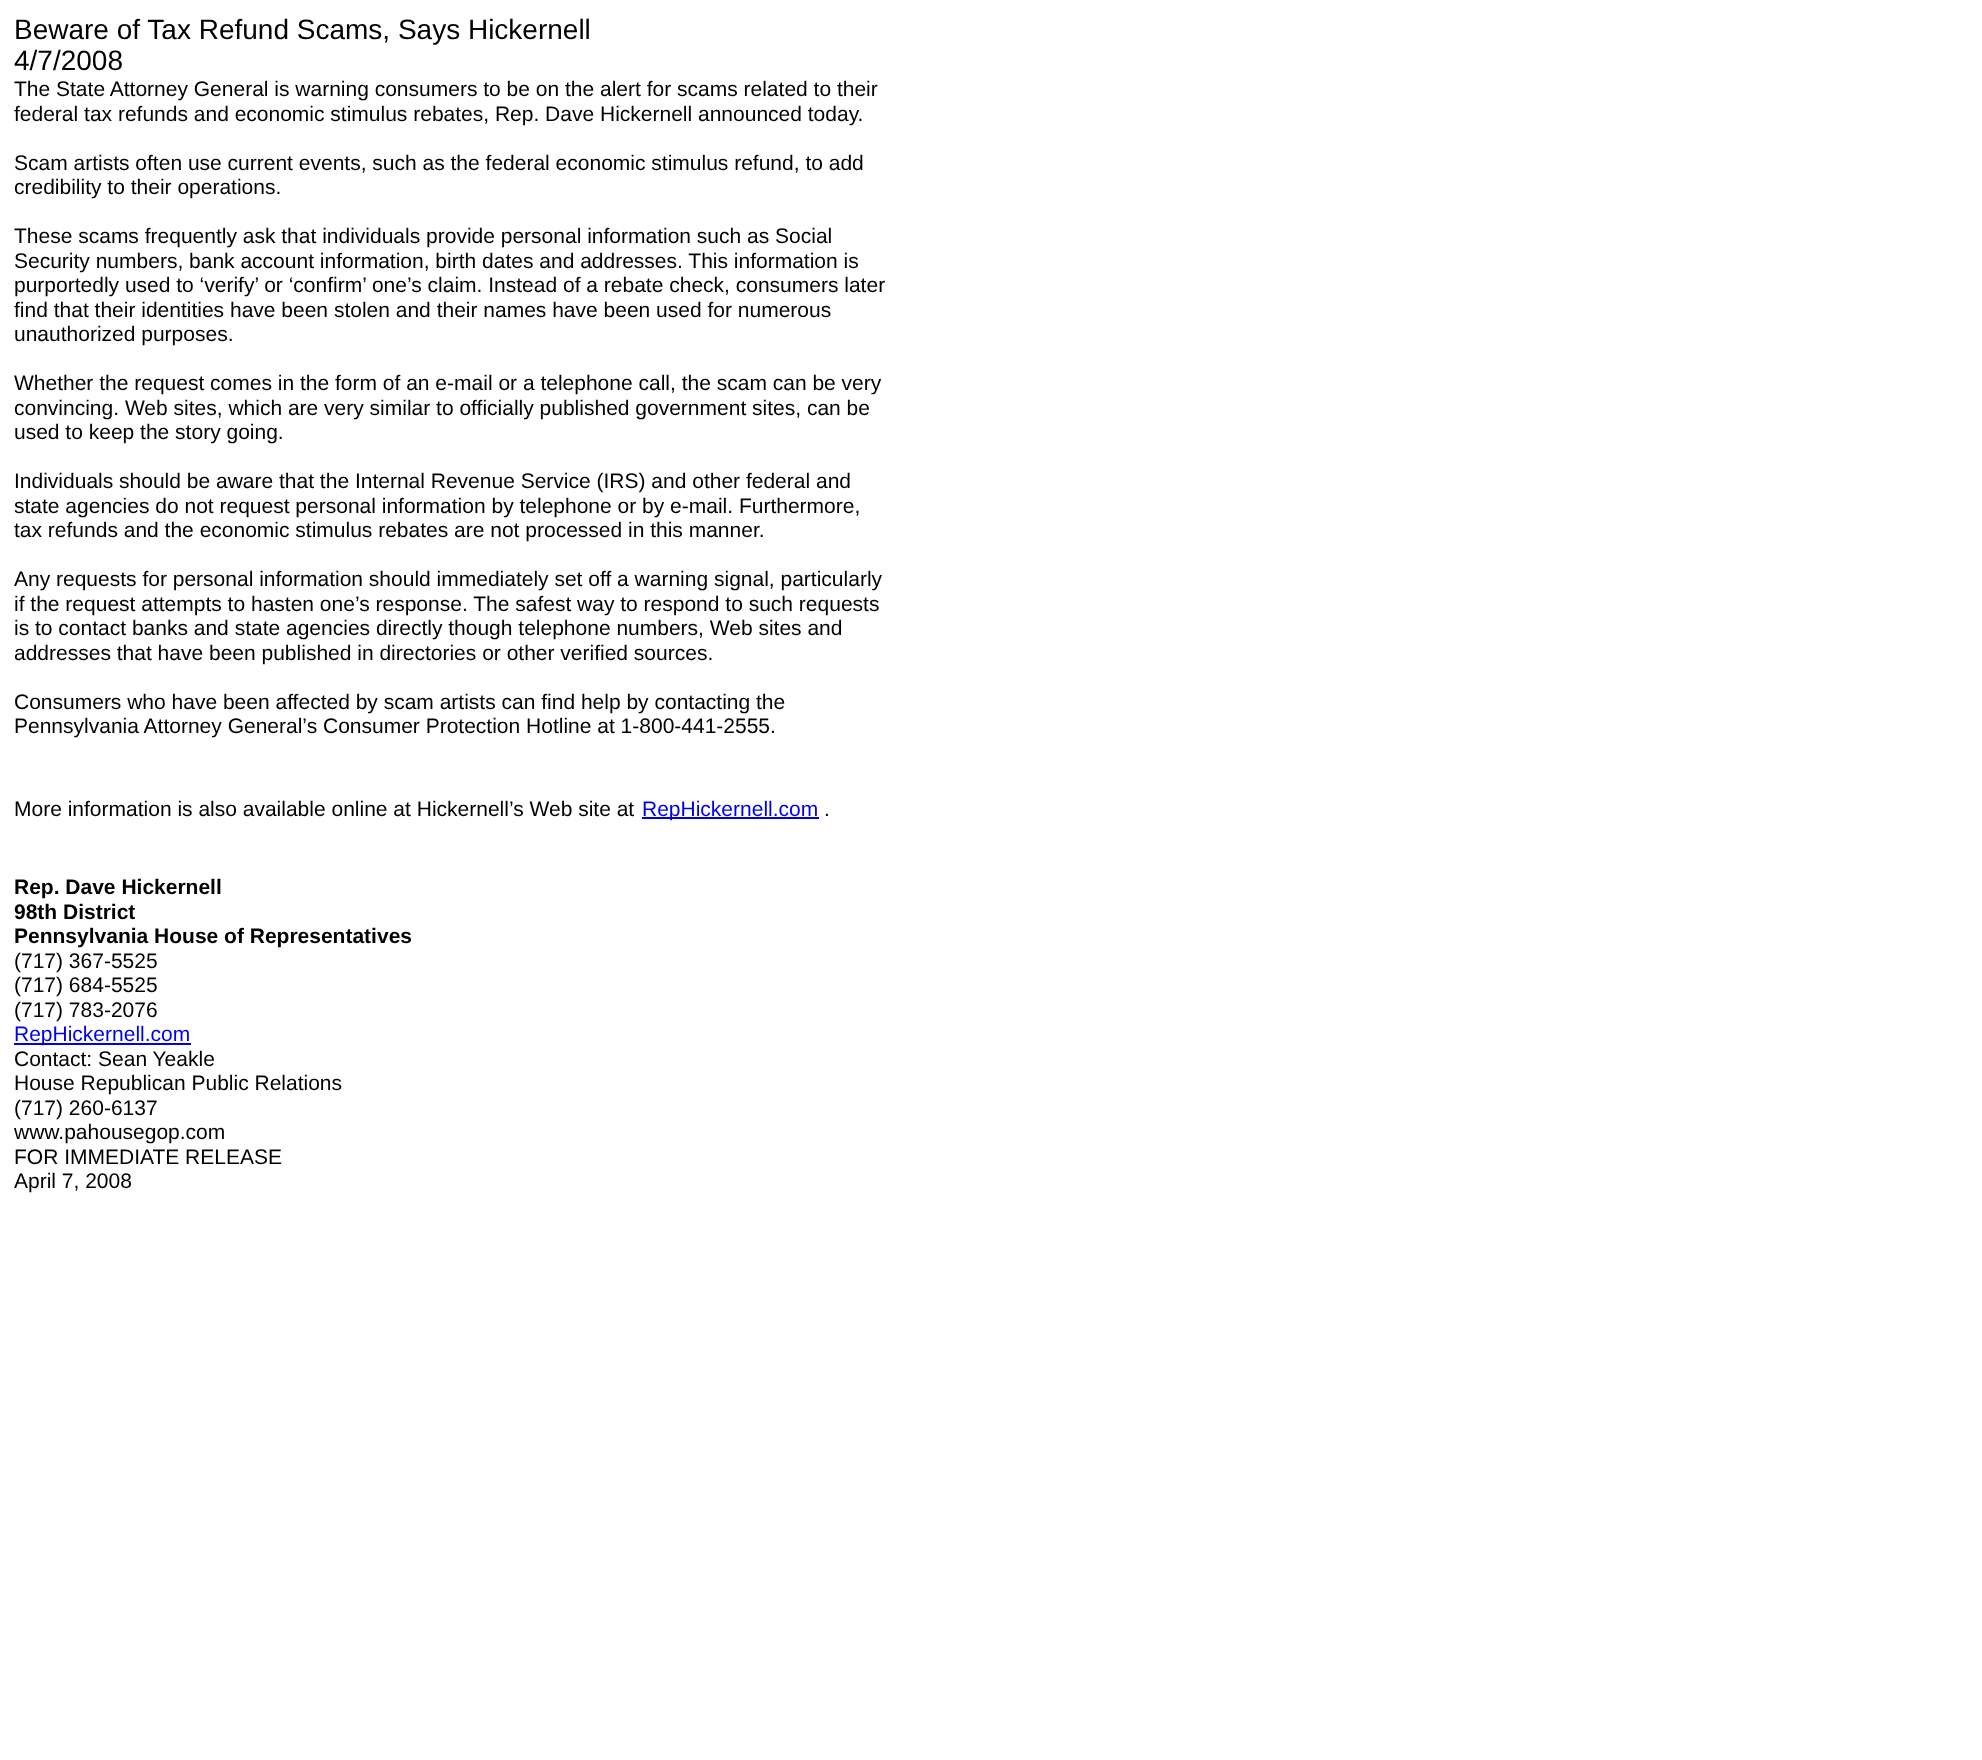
async function draw(canvas) {
  canvas.width = 1982;
  canvas.height = 1760;
  const ctx = canvas.getContext('2d');
  ctx.miterLimit = 4;
  ctx.fontKerning = 'normal';
  function label(s, x, y, font, color) {
    ctx.font = font;
    ctx.fillStyle = color;
    ctx.fillText(s, x, y);
  }
  function rect(x, y, w, h, color) {
    ctx.fillStyle = color;
    ctx.fillRect(x, y, w, h);
  }

  rect(0, 0, 1982, 1760, '#fff');
  label('Beware of Tax Refund Scams, Says Hickernell', 14, 39, '28px Liberation Sans', '#000');
  label('4/7/2008', 14, 70, '28px Liberation Sans', '#000');
  label('The State Attorney General is warning consumers to be on the alert for scams related to their', 14, 96, '21px Liberation Sans', '#000');
  label('federal tax refunds and economic stimulus rebates, Rep. Dave Hickernell announced today.', 14, 121, '21px Liberation Sans', '#000');
  label('Scam artists often use current events, such as the federal economic stimulus refund, to add', 14, 170, '21px Liberation Sans', '#000');
  label('credibility to their operations.', 14, 194, '21px Liberation Sans', '#000');
  label('These scams frequently ask that individuals provide personal information such as Social', 14, 243, '21px Liberation Sans', '#000');
  label('Security numbers, bank account information, birth dates and addresses. This information is', 14, 268, '21px Liberation Sans', '#000');
  label('purportedly used to ‘verify’ or ‘confirm’ one’s claim. Instead of a rebate check, consumers later', 14, 292, '21px Liberation Sans', '#000');
  label('find that their identities have been stolen and their names have been used for numerous', 14, 317, '21px Liberation Sans', '#000');
  label('unauthorized purposes.', 14, 341, '21px Liberation Sans', '#000');
  label('Whether the request comes in the form of an e-mail or a telephone call, the scam can be very', 14, 390, '21px Liberation Sans', '#000');
  label('convincing. Web sites, which are very similar to officially published government sites, can be', 14, 415, '21px Liberation Sans', '#000');
  label('used to keep the story going.', 14, 439, '21px Liberation Sans', '#000');
  label('Individuals should be aware that the Internal Revenue Service (IRS) and other federal and', 14, 488, '21px Liberation Sans', '#000');
  label('state agencies do not request personal information by telephone or by e-mail. Furthermore,', 14, 513, '21px Liberation Sans', '#000');
  label('tax refunds and the economic stimulus rebates are not processed in this manner.', 14, 537, '21px Liberation Sans', '#000');
  label('Any requests for personal information should immediately set off a warning signal, particularly', 14, 586, '21px Liberation Sans', '#000');
  label('if the request attempts to hasten one’s response. The safest way to respond to such requests', 14, 611, '21px Liberation Sans', '#000');
  label('is to contact banks and state agencies directly though telephone numbers, Web sites and', 14, 635, '21px Liberation Sans', '#000');
  label('addresses that have been published in directories or other verified sources.', 14, 660, '21px Liberation Sans', '#000');
  label('Consumers who have been affected by scam artists can find help by contacting the', 14, 709, '21px Liberation Sans', '#000');
  label('Pennsylvania Attorney General’s Consumer Protection Hotline at 1-800-441-2555.', 14, 733, '21px Liberation Sans', '#000');
  label('More information is also available online at Hickernell’s Web site at', 14, 816, '21px Liberation Sans', '#000');
  rect(642, 817, 177, 2, '#00e');
  label('RepHickernell.com', 642, 816, '21px Liberation Sans', '#00e');
  label('.', 824, 816, '21px Liberation Sans', '#000');
  label('Rep. Dave Hickernell', 14, 894, 'bold 21px Liberation Sans', '#000');
  label('98th District', 14, 919, 'bold 21px Liberation Sans', '#000');
  label('Pennsylvania House of Representatives', 14, 943, 'bold 21px Liberation Sans', '#000');
  label('(717) 367-5525', 14, 968, '21px Liberation Sans', '#000');
  label('(717) 684-5525', 14, 992, '21px Liberation Sans', '#000');
  label('(717) 783-2076', 14, 1017, '21px Liberation Sans', '#000');
  rect(14, 1043, 177, 2, '#00e');
  label('RepHickernell.com', 14, 1041, '21px Liberation Sans', '#00e');
  label('Contact: Sean Yeakle', 14, 1066, '21px Liberation Sans', '#000');
  label('House Republican Public Relations', 14, 1090, '21px Liberation Sans', '#000');
  label('(717) 260-6137', 14, 1115, '21px Liberation Sans', '#000');
  label('www.pahousegop.com', 14, 1139, '21px Liberation Sans', '#000');
  label('FOR IMMEDIATE RELEASE', 14, 1164, '21px Liberation Sans', '#000');
  label('April 7, 2008', 14, 1188, '21px Liberation Sans', '#000');
}

draw(document.querySelector('canvas'));
